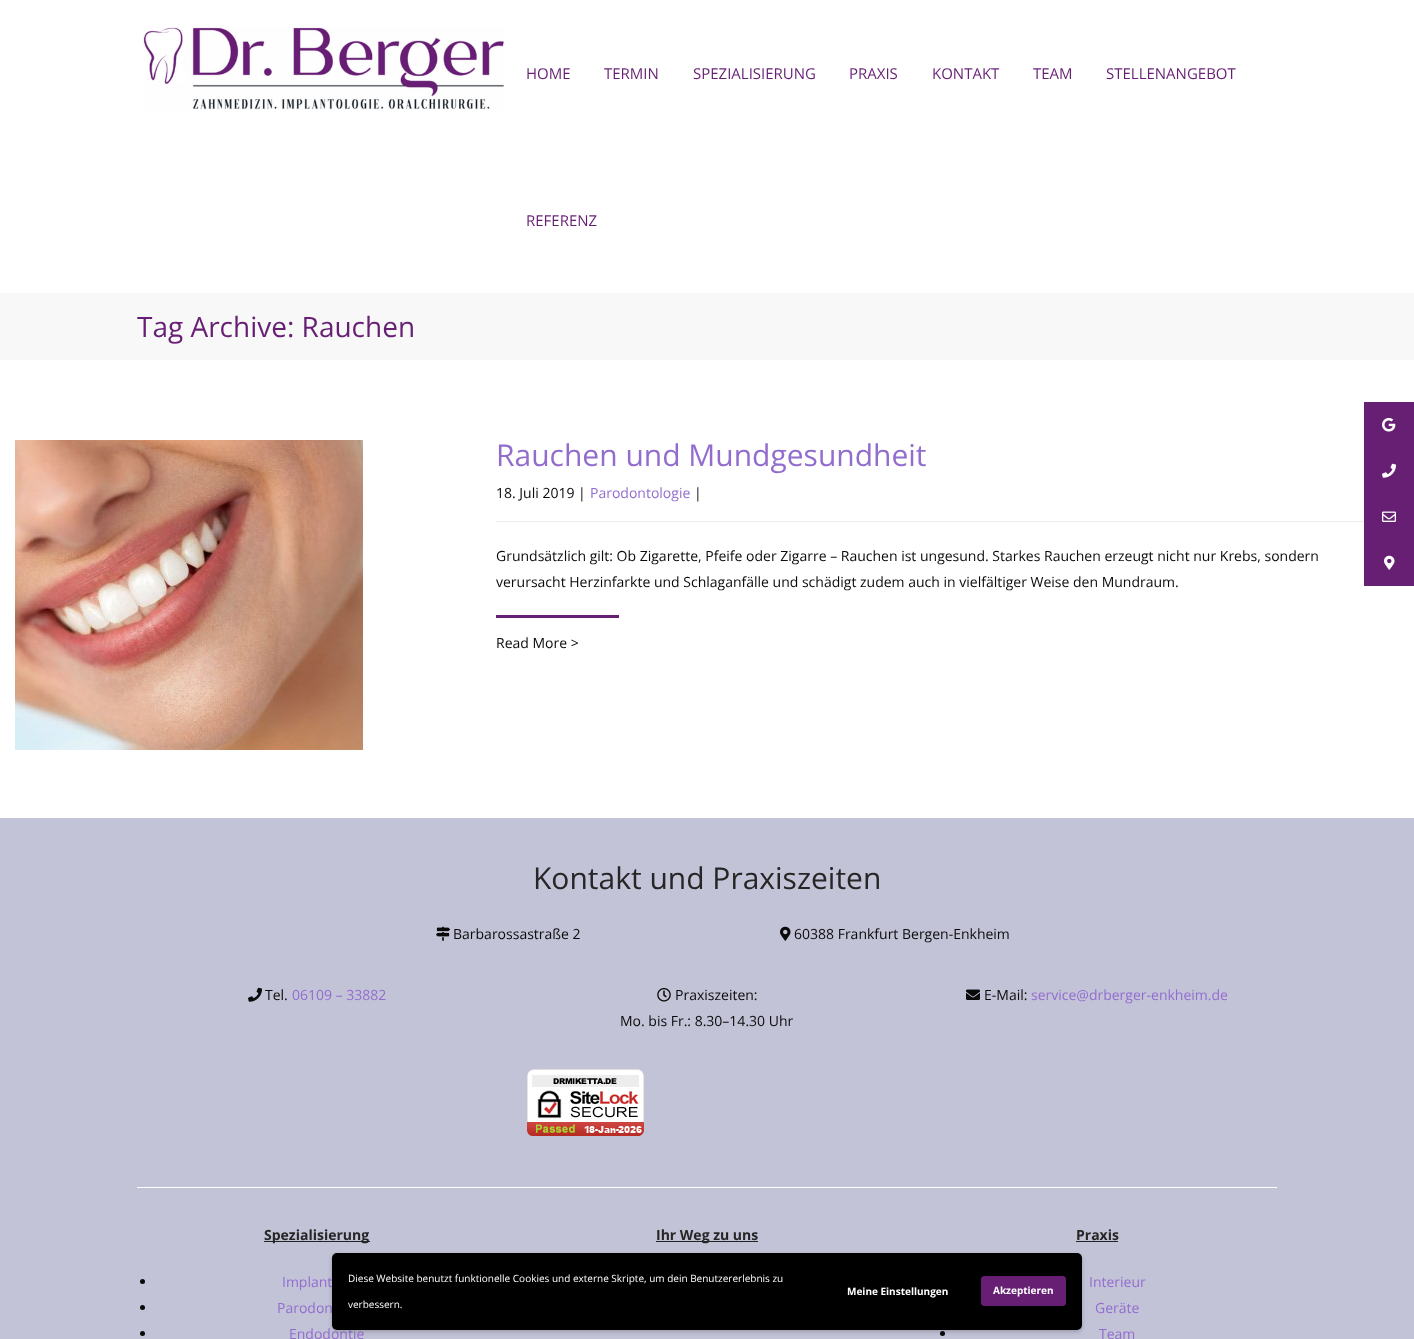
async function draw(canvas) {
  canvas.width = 1414;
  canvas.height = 1339;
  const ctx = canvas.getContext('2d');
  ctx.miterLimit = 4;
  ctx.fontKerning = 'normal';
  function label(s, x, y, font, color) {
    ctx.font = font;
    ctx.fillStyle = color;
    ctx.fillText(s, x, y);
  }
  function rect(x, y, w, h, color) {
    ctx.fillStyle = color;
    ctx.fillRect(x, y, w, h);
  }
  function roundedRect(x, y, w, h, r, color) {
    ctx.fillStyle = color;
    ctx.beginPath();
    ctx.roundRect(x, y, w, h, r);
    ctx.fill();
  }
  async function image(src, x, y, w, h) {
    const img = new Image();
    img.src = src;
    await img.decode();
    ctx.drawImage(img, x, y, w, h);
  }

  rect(0, 0, 1414, 1339, '#fff');
  await image('assets/img1.png', 143, 27, 361, 83);
  label('HOME', 526, 79, '15px Open Sans', '#671f74');
  label('TERMIN', 604, 79, '15px Open Sans', '#671f74');
  label('SPEZIALISIERUNG', 693, 79, '15px Open Sans', '#671f74');
  label('PRAXIS', 849, 79, '15px Open Sans', '#671f74');
  label('KONTAKT', 932, 79, '15px Open Sans', '#671f74');
  label('TEAM', 1033, 79, '15px Open Sans', '#671f74');
  label('STELLENANGEBOT', 1106, 79, '15px Open Sans', '#671f74');
  label('REFERENZ', 526, 226, '15px Open Sans', '#671f74');
  rect(0, 293, 1414, 67, '#f8f8f8');
  label('Tag Archive: Rauchen', 137, 337, '28px Open Sans', '#671f74');
  await image('assets/img2.png', 15, 440, 348, 310);
  label('Rauchen und Mundgesundheit', 496, 466, '30px Open Sans', '#926dce');
  rect(496, 521, 868, 1, '#ededed');
  label('18. Juli 2019 |', 496, 498, '14px Open Sans', '#0a0a0a');
  label('Parodontologie', 590, 498, '14px Open Sans', '#926dce');
  label('|', 694, 498, '14px Open Sans', '#0a0a0a');
  label('Grundsätzlich gilt: Ob Zigarette, Pfeife oder Zigarre – Rauchen ist ungesund. Starkes Rauchen erzeugt nicht nur Krebs, sondern', 496, 561, '14px Open Sans', '#0a0a0a');
  label('verursacht Herzinfarkte und Schlaganfälle und schädigt zudem auch in vielfältiger Weise den Mundraum.', 496, 587, '14px Open Sans', '#0a0a0a');
  rect(496, 615, 123, 3, '#671f74');
  label('Read More >', 496, 648, '14px Open Sans', '#0a0a0a');
  rect(0, 818, 1414, 521, '#c3c3d8');
  label('Kontakt und Praxiszeiten', 533, 889, '30px Open Sans', '#262626');
  await image('assets/img3.png', 436, 926, 14, 15);
  label('Barbarossastraße 2', 453, 939, '14px Open Sans', '#0a0a0a');
  await image('assets/img4.png', 780, 926, 11, 15);
  label('60388 Frankfurt Bergen-Enkheim', 794, 939, '14px Open Sans', '#0a0a0a');
  await image('assets/img5.png', 248, 987, 14, 15);
  label('Tel.', 265, 1000, '14px Open Sans', '#0a0a0a');
  label('06109 – 33882', 292, 1000, '14px Open Sans', '#926dce');
  await image('assets/img6.png', 657, 988, 14, 14);
  label('Praxiszeiten:', 675, 1000, '14px Open Sans', '#0a0a0a');
  label('Mo. bis Fr.: 8.30–14.30 Uhr', 620, 1026, '14px Open Sans', '#0a0a0a');
  await image('assets/img7.png', 527, 1069, 117, 67);
  await image('assets/img8.png', 966, 989, 14, 11);
  label('E-Mail:', 984, 1000, '14px Open Sans', '#0a0a0a');
  label('service@drberger-enkheim.de', 1031, 1000, '14px Open Sans', '#926dce');
  rect(137, 1187, 1140, 1, '#fff');
  rect(264, 1241, 106, 1, '#232323');
  label('Spezialisierung', 264, 1240, 'bold 14px Open Sans', '#262626');
  ctx.fillStyle = '#0a0a0a';
  ctx.beginPath();
  ctx.arc(142.5, 1281.5, 2.5, 0, 2 * Math.PI);
  ctx.fill();
  label('Implant', 282, 1287, '14px Open Sans', '#926dce');
  ctx.fillStyle = '#0a0a0a';
  ctx.beginPath();
  ctx.arc(142.5, 1307.5, 2.5, 0, 2 * Math.PI);
  ctx.fill();
  label('Parodon', 277, 1313, '14px Open Sans', '#926dce');
  ctx.fillStyle = '#0a0a0a';
  ctx.beginPath();
  ctx.arc(142.5, 1333.5, 2.5, 0, 2 * Math.PI);
  ctx.fill();
  label('Endodontie', 289, 1339, '14px Open Sans', '#926dce');
  rect(656, 1241, 102, 1, '#232323');
  label('Ihr Weg zu uns', 656, 1240, 'bold 14px Open Sans', '#262626');
  label('Praxis', 1076, 1240, 'bold 14px Open Sans', '#262626');
  rect(1076, 1241, 42, 1, '#232323');
  label('Interieur', 1089, 1287, '14px Open Sans', '#926dce');
  label('Geräte', 1095, 1313, '14px Open Sans', '#926dce');
  ctx.fillStyle = '#0a0a0a';
  ctx.beginPath();
  ctx.arc(942.5, 1333.5, 2.5, 0, 2 * Math.PI);
  ctx.fill();
  label('Team', 1099, 1339, '14px Open Sans', '#926dce');
  rect(1364, 402, 50, 184, '#671f74');
  await image('assets/img9.png', 1382, 418, 14, 14);
  await image('assets/img10.png', 1382, 463, 14, 15);
  await image('assets/img11.png', 1382, 511, 14, 11);
  await image('assets/img12.png', 1384, 555, 11, 15);
  ctx.fillStyle = '#00000033';
  ctx.filter = 'blur(2px)';
  ctx.beginPath();
  ctx.roundRect(332, 1255, 750, 77, 5);
  ctx.fill();
  ctx.filter = 'none';
  roundedRect(332, 1253, 750, 77, 5, '#000');
  label('Diese Website benutzt funktionelle Cookies und externe Skripte, um dein Benutzererlebnis zu', 348, 1282, '10px Open Sans', '#fff');
  label('verbessern.', 348, 1308, '10px Open Sans', '#fff');
  label('Meine Einstellungen', 847, 1295, 'bold 10px Open Sans', '#fff');
  ctx.fillStyle = '#671f74';
  ctx.beginPath();
  ctx.roundRect(981.5, 1276.5, 84, 29, 2.5);
  ctx.fill();
  ctx.strokeStyle = '#671f74';
  ctx.stroke();
  label('Akzeptieren', 993, 1294, 'bold 10px Open Sans', '#fff');
}

draw(document.querySelector('canvas'));
